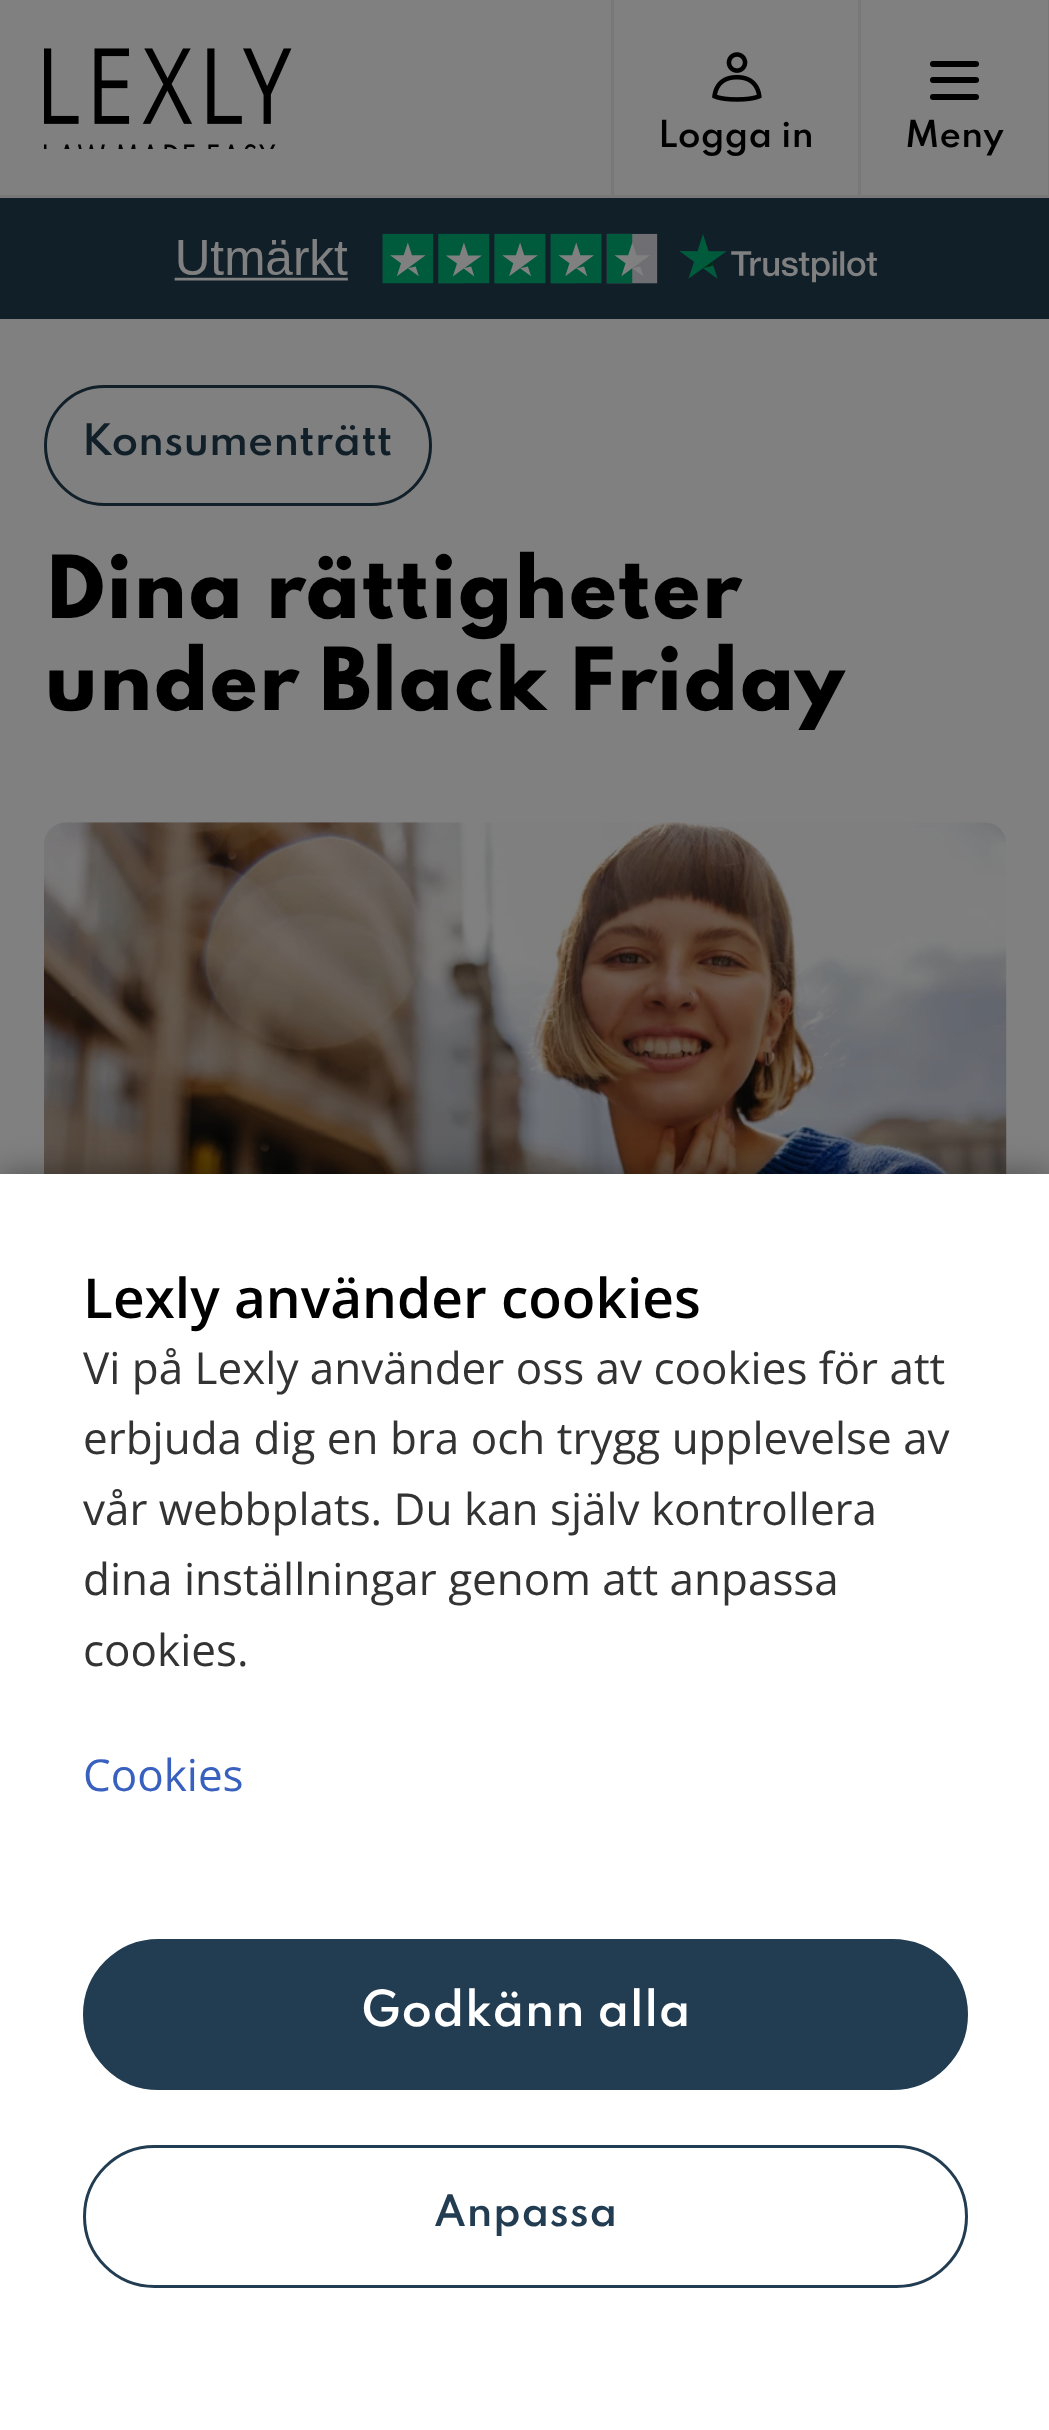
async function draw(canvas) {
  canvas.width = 1049;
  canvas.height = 2430;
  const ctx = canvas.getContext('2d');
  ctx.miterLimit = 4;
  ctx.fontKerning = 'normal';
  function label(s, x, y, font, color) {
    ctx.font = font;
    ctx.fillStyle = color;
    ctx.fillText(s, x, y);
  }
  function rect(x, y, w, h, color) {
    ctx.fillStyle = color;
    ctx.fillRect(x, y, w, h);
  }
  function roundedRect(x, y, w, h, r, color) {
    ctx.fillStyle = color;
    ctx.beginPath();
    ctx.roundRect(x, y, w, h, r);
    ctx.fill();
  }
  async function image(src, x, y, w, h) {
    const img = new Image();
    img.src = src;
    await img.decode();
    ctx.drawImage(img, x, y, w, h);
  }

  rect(0, 0, 1049, 2430, '#808080');
  rect(0, 195, 611, 3, '#787878');
  await image('assets/img1.png', 44, 48, 248, 101);
  rect(858, 0, 3, 198, '#787878');
  rect(611, 195, 250, 3, '#787878');
  rect(611, 0, 3, 198, '#787878');
  await image('assets/img2.png', 712, 52, 50, 50);
  label('Logga in', 658, 147, '600 33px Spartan', '#000');
  rect(1048, 0, 1, 198, '#787878');
  rect(861, 195, 188, 3, '#787878');
  roundedRect(930, 77, 49, 6, 3, '#000');
  roundedRect(930, 61, 49, 6, 3, '#000');
  roundedRect(930, 94, 49, 6, 3, '#000');
  label('Meny', 905, 147, '600 33px Spartan', '#000');
  rect(0, 198, 1049, 121, '#111f29');
  await image('assets/img3.png', 174, 233, 703, 51);
  ctx.beginPath();
  ctx.roundRect(45.5, 386.5, 385, 118, 59);
  ctx.strokeStyle = '#111f29';
  ctx.lineWidth = 3;
  ctx.stroke();
  label('Konsumenträtt', 82, 455, '600 38.5px Spartan', '#111f29');
  label('Dina rättigheter', 44, 618, '800 77px Spartan', '#000');
  label('under Black Friday', 44, 710, '800 77px Spartan', '#000');
  await image('assets/img4.png', 44, 822, 963, 352);
  ctx.fillStyle = '#00000066';
  ctx.filter = 'blur(16.5px)';
  ctx.beginPath();
  ctx.rect(0, 1174, 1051, 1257);
  ctx.fill();
  ctx.filter = 'none';
  rect(0, 1174, 1049, 1256, '#fff');
  label('Lexly använder cookies', 83, 1318, '600 55px Open Sans', '#000');
  label('Vi på Lexly använder oss av cookies för att', 83, 1384, '44px Open Sans', '#333');
  label('erbjuda dig en bra och trygg upplevelse av', 83, 1454, '44px Open Sans', '#333');
  label('vår webbplats. Du kan själv kontrollera', 83, 1525, '44px Open Sans', '#333');
  label('dina inställningar genom att anpassa', 83, 1595, '44px Open Sans', '#333');
  label('cookies.', 83, 1666, '44px Open Sans', '#333');
  label('Cookies', 83, 1791, '44px Open Sans', '#3860be');
  ctx.fillStyle = '#223d52';
  ctx.beginPath();
  ctx.roundRect(84.5, 1940.5, 882, 148, 74);
  ctx.fill();
  ctx.strokeStyle = '#223d52';
  ctx.stroke();
  ctx.letterSpacing = '0.5px';
  label('Godkänn alla', 361, 2026, '600 44px Spartan', '#fff');
  ctx.beginPath();
  ctx.roundRect(84.5, 2146.5, 882, 140, 70);
  ctx.stroke();
  label('Anpassa', 434, 2226, '600 38.5px Spartan', '#223d52');
}

draw(document.querySelector('canvas'));
